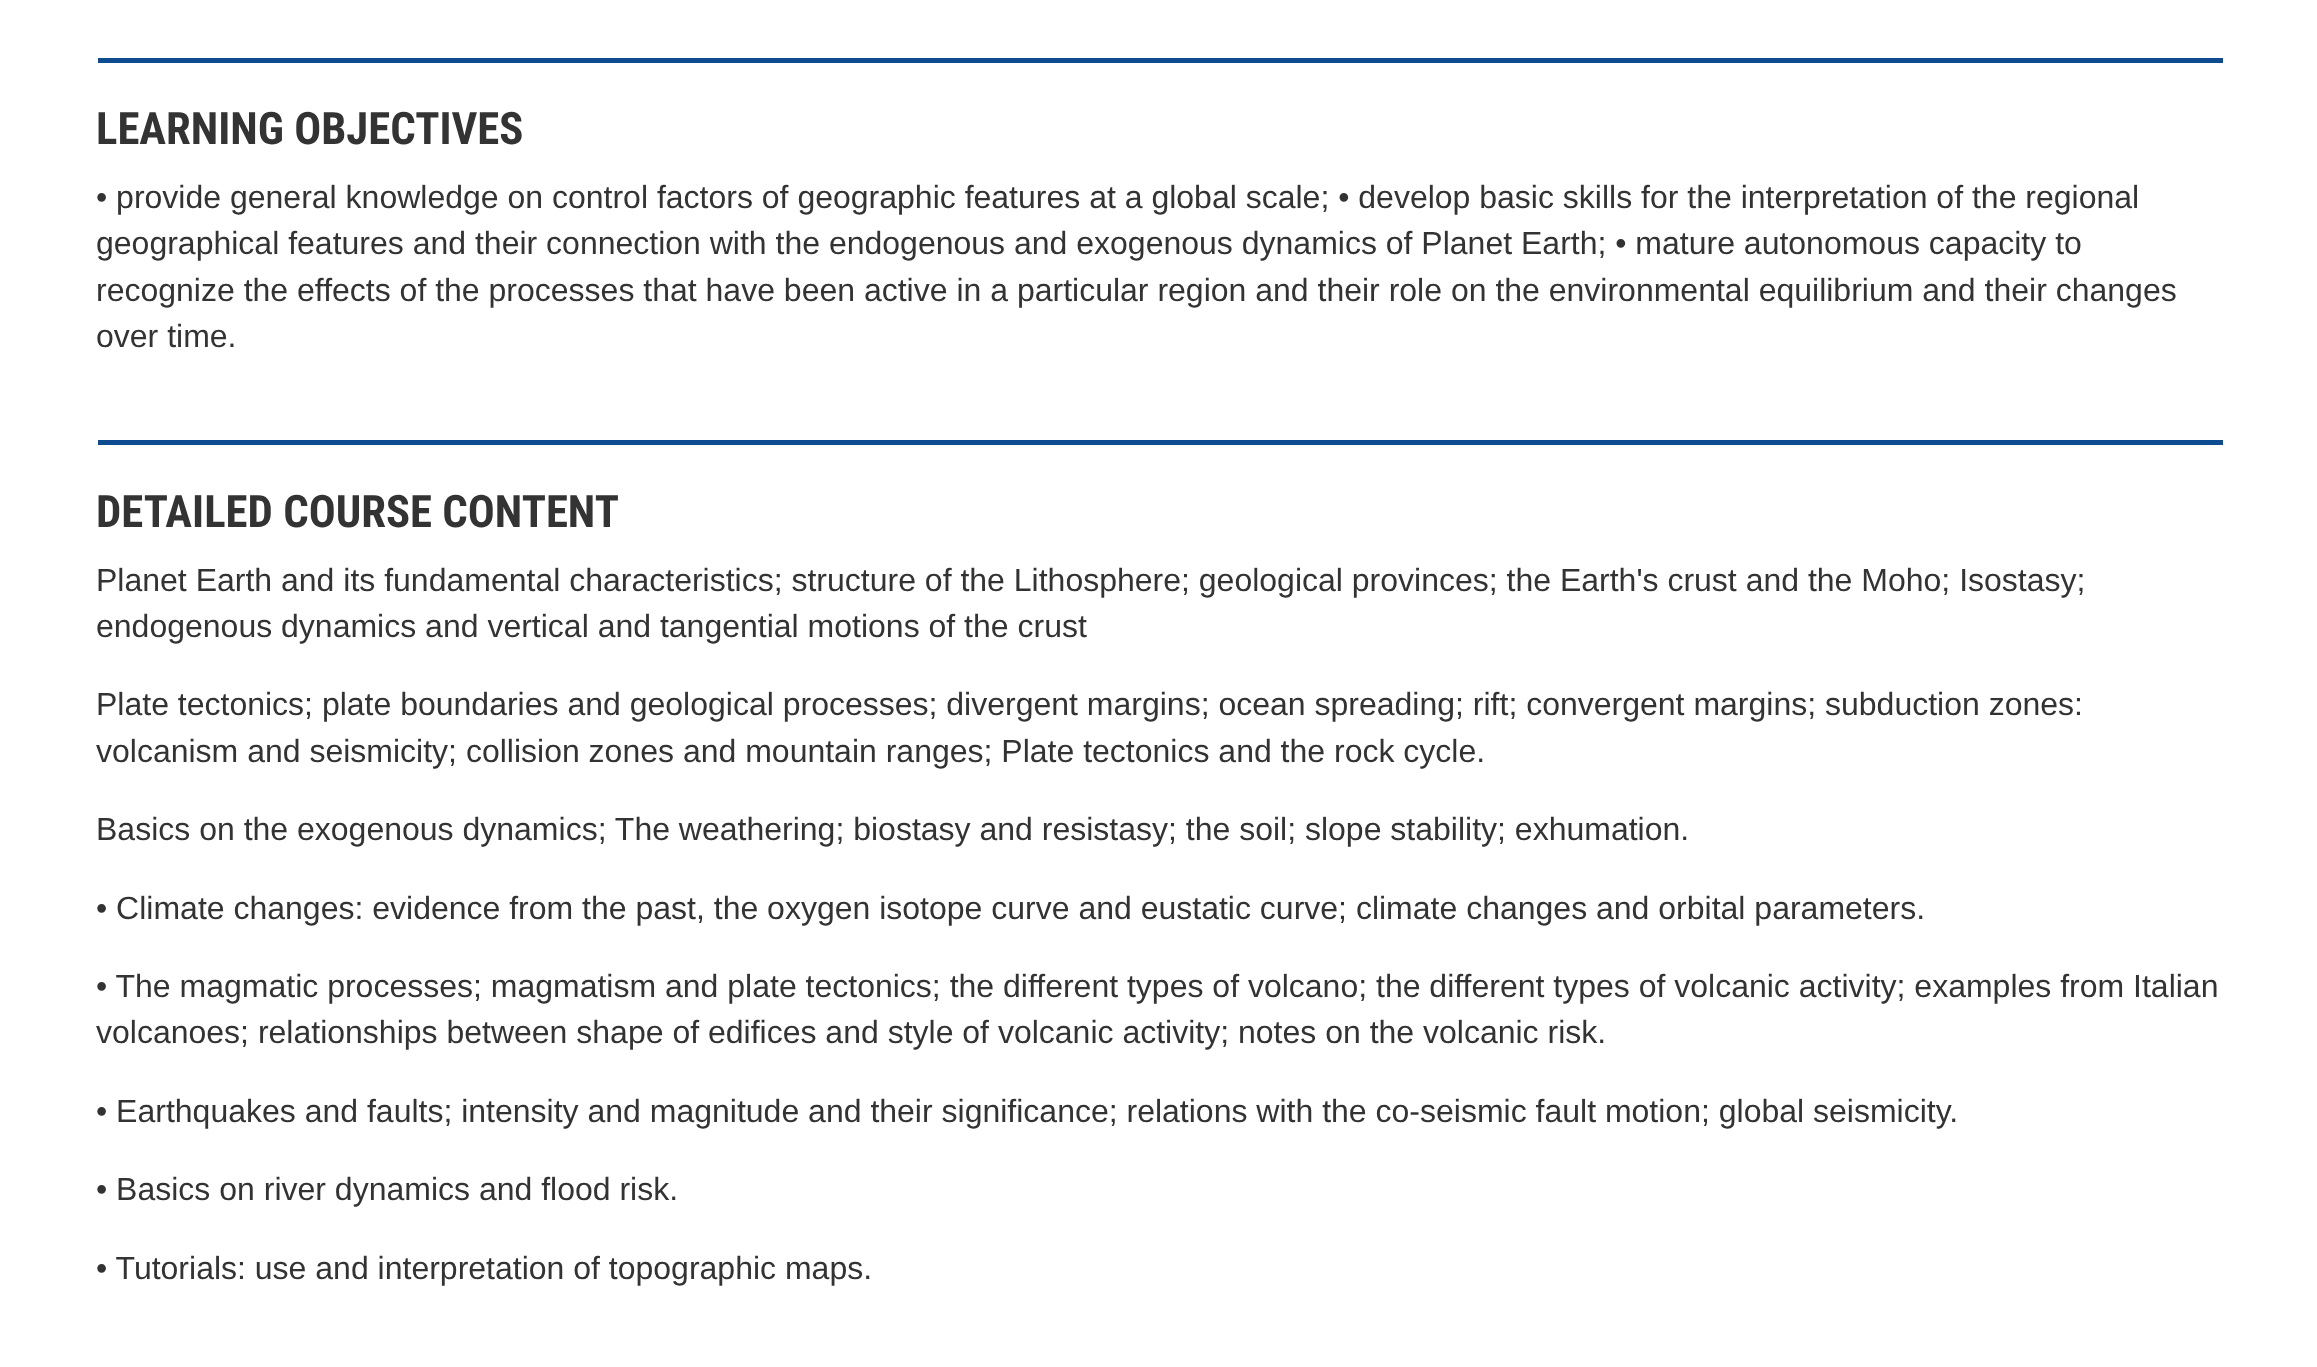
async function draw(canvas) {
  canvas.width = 2317;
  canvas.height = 1367;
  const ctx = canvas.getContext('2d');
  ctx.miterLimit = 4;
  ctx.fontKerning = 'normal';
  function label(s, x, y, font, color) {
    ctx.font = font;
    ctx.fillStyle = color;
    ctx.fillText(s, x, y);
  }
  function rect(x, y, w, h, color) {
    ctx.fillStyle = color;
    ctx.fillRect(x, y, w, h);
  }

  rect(0, 0, 2317, 1367, '#fff');
  rect(98, 58, 2125, 5, '#0e4c92');
  label('LEARNING OBJECTIVES', 96, 144, 'bold 44.75px Roboto Condensed', '#333');
  label('• provide general knowledge on control factors of geographic features at a global scale; • develop basic skills for the interpretation of the regional', 96, 208, '32px Liberation Sans', '#333');
  label('geographical features and their connection with the endogenous and exogenous dynamics of Planet Earth; • mature autonomous capacity to', 96, 254, '32px Liberation Sans', '#333');
  label('recognize the effects of the processes that have been active in a particular region and their role on the environmental equilibrium and their changes', 96, 301, '32px Liberation Sans', '#333');
  label('over time.', 96, 347, '32px Liberation Sans', '#333');
  rect(98, 440, 2125, 5, '#0e4c92');
  label('DETAILED COURSE CONTENT', 96, 527, 'bold 44.75px Roboto Condensed', '#333');
  label('Planet Earth and its fundamental characteristics; structure of the Lithosphere; geological provinces; the Earth\'s crust and the Moho; Isostasy;', 96, 591, '32px Liberation Sans', '#333');
  label('endogenous dynamics and vertical and tangential motions of the crust', 96, 637, '32px Liberation Sans', '#333');
  label('Plate tectonics; plate boundaries and geological processes; divergent margins; ocean spreading; rift; convergent margins; subduction zones:', 96, 715, '32px Liberation Sans', '#333');
  label('volcanism and seismicity; collision zones and mountain ranges; Plate tectonics and the rock cycle.', 96, 762, '32px Liberation Sans', '#333');
  label('Basics on the exogenous dynamics; The weathering; biostasy and resistasy; the soil; slope stability; exhumation.', 96, 840, '32px Liberation Sans', '#333');
  label('• Climate changes: evidence from the past, the oxygen isotope curve and eustatic curve; climate changes and orbital parameters.', 96, 919, '32px Liberation Sans', '#333');
  label('• The magmatic processes; magmatism and plate tectonics; the different types of volcano; the different types of volcanic activity; examples from Italian', 96, 997, '32px Liberation Sans', '#333');
  label('volcanoes; relationships between shape of edifices and style of volcanic activity; notes on the volcanic risk.', 96, 1043, '32px Liberation Sans', '#333');
  label('• Earthquakes and faults; intensity and magnitude and their significance; relations with the co-seismic fault motion; global seismicity.', 96, 1122, '32px Liberation Sans', '#333');
  label('• Basics on river dynamics and flood risk.', 96, 1200, '32px Liberation Sans', '#333');
  label('• Tutorials: use and interpretation of topographic maps.', 96, 1279, '32px Liberation Sans', '#333');
}

draw(document.querySelector('canvas'));
